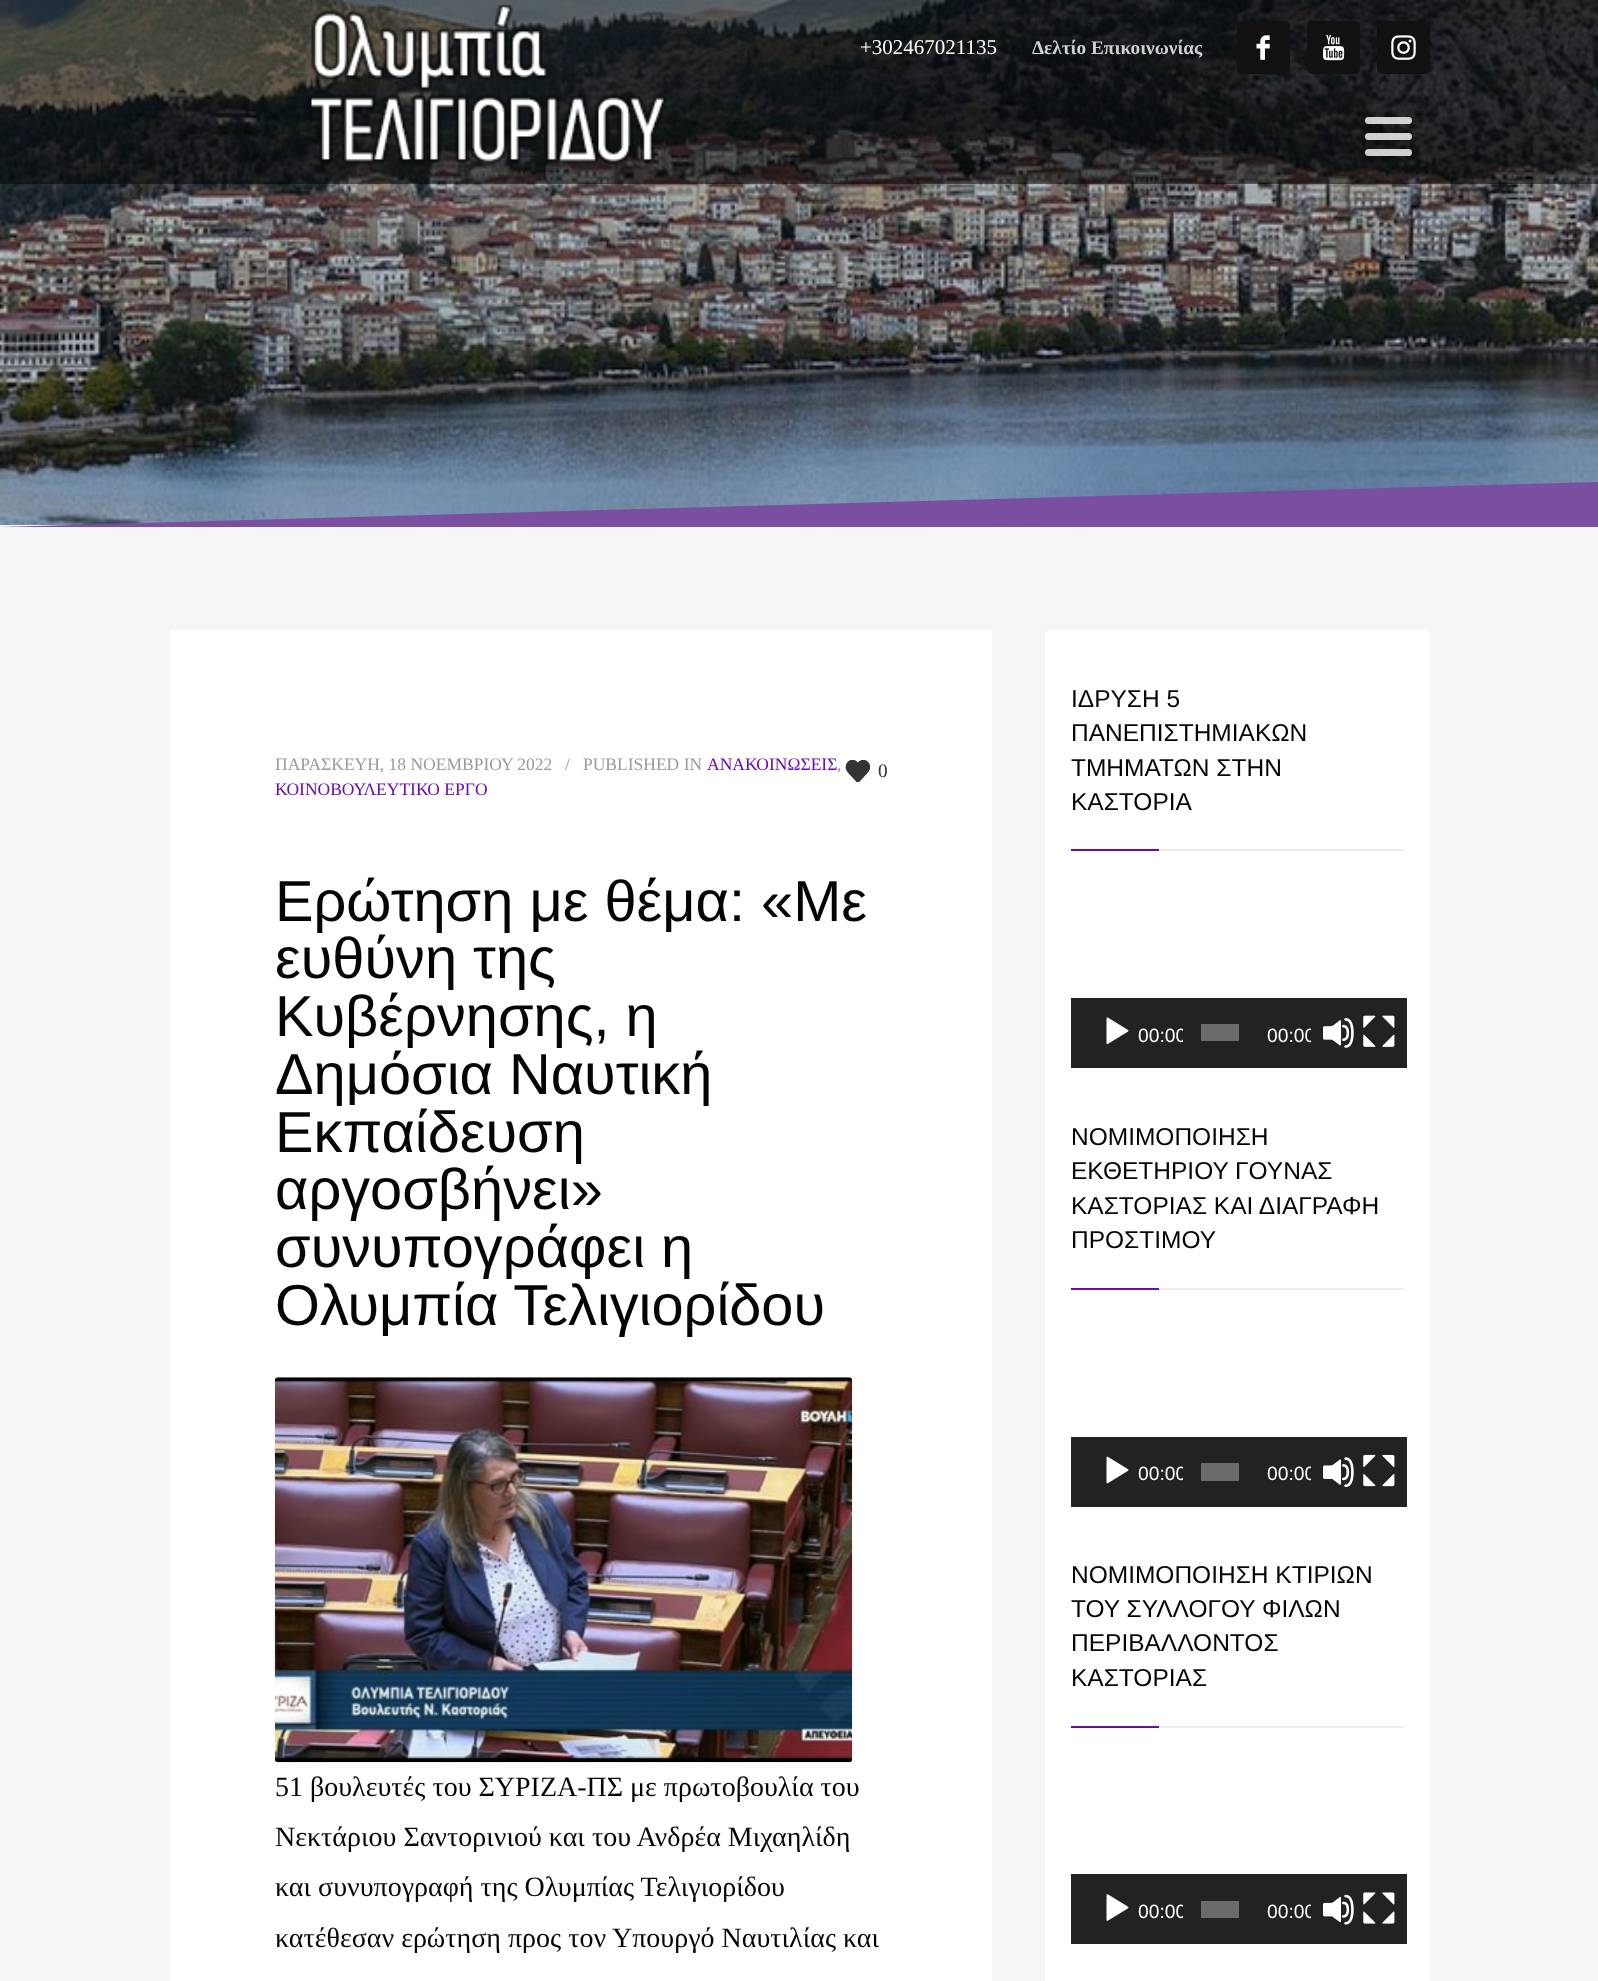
async function draw(canvas) {
  canvas.width = 1598;
  canvas.height = 1981;
  const ctx = canvas.getContext('2d');
  ctx.miterLimit = 4;
  ctx.fontKerning = 'normal';
  function label(s, x, y, font, color) {
    ctx.font = font;
    ctx.fillStyle = color;
    ctx.fillText(s, x, y);
  }
  function rect(x, y, w, h, color) {
    ctx.fillStyle = color;
    ctx.fillRect(x, y, w, h);
  }
  function roundedRect(x, y, w, h, r, color) {
    ctx.fillStyle = color;
    ctx.beginPath();
    ctx.roundRect(x, y, w, h, r);
    ctx.fill();
  }
  async function image(src, x, y, w, h) {
    const img = new Image();
    img.src = src;
    await img.decode();
    ctx.drawImage(img, x, y, w, h);
  }
  let path;

  rect(0, 0, 1598, 1981, '#f5f5f5');
  await image('assets/img1.png', 0, 0, 1598, 525);
  await image('assets/img2.png', 281, 0, 595, 470);
  ctx.save();
  ctx.beginPath();
  ctx.rect(0, 481, 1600, 46);
  ctx.clip();
  ctx.fillStyle = '#7a4f9f';
  path = new Path2D('M0 527L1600 482V527L0 571Z');
  ctx.fill(path);
  ctx.restore();
  rect(0, 0, 1598, 184, '#00000080');
  await image('assets/img3.png', 308, 5, 359, 160);
  label('+302467021135', 860, 54, '21px Liberation Serif', '#fff');
  label('Δελτίο Επικοινωνίας', 1032, 54, 'bold 19.25px Liberation Serif', '#cfd0d1');
  roundedRect(1237, 21, 53, 53, 5, '#111');
  await image('assets/img4.png', 1256, 35, 14, 25);
  roundedRect(1307, 21, 53, 53, 5, '#111');
  await image('assets/img5.png', 1323, 34, 22, 27);
  roundedRect(1377, 21, 53, 53, 5, '#111');
  await image('assets/img6.png', 1391, 35, 25, 25);
  roundedRect(1365, 117, 47, 7, 3.5, '#ffffffcc');
  roundedRect(1365, 133, 47, 7, 3.5, '#ffffffcc');
  roundedRect(1365, 149, 47, 7, 3.5, '#ffffffcc');
  rect(170, 630, 822, 1351, '#fff');
  label('ΠΑΡΑΣΚΕΥΗ, 18 ΝΟΕΜΒΡΙΟΥ 2022', 275, 770, '17.5px Liberation Serif', '#9a9a9a');
  label('/', 565, 770, '17.5px Liberation Serif', '#9a9a9a');
  label('PUBLISHED IN', 583, 770, '17.5px Liberation Serif', '#9a9a9a');
  label('ΑΝΑΚΟΙΝΩΣΕΙΣ', 707, 770, '17.5px Liberation Serif', '#6a0dad');
  label(',', 837, 770, '17.5px Liberation Serif', '#9a9a9a');
  label('ΚΟΙΝΟΒΟΥΛΕΥΤΙΚΟ ΕΡΓΟ', 275, 795, '17.5px Liberation Serif', '#6a0dad');
  await image('assets/img7.png', 845, 760, 25, 22);
  label('0', 878, 777, '19.25px Liberation Serif', '#333');
  label('Ερώτηση με θέμα: «Με', 275, 921, '57.75px Liberation Sans', '#050505');
  label('ευθύνη της', 275, 978, '57.75px Liberation Sans', '#050505');
  label('Κυβέρνησης, η', 275, 1036, '57.75px Liberation Sans', '#050505');
  label('Δημόσια Ναυτική', 275, 1094, '57.75px Liberation Sans', '#050505');
  label('Εκπαίδευση', 275, 1152, '57.75px Liberation Sans', '#050505');
  label('αργοσβήνει»', 275, 1209, '57.75px Liberation Sans', '#050505');
  label('συνυπογράφει η', 275, 1267, '57.75px Liberation Sans', '#050505');
  label('Ολυμπία Τελιγιορίδου', 275, 1325, '57.75px Liberation Sans', '#050505');
  await image('assets/img8.png', 274, 1377, 579, 386);
  label('51 βουλευτές του ΣΥΡΙΖΑ-ΠΣ με πρωτοβουλία του', 275, 1796, '28px Liberation Serif', '#050505');
  label('Νεκτάριου Σαντορινιού και του Ανδρέα Μιχαηλίδη', 275, 1846, '28px Liberation Serif', '#050505');
  label('και συνυπογραφή της Ολυμπίας Τελιγιορίδου', 275, 1896, '28px Liberation Serif', '#050505');
  label('κατέθεσαν ερώτηση προς τον Υπουργό Ναυτιλίας και', 275, 1947, '28px Liberation Serif', '#050505');
  roundedRect(1045, 630, 385, 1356, 5, '#fff');
  label('ΙΔΡΥΣΗ 5', 1071, 707, '24.5px Liberation Sans', '#050505');
  label('ΠΑΝΕΠΙΣΤΗΜΙΑΚΩΝ', 1071, 741, '24.5px Liberation Sans', '#050505');
  label('ΤΜΗΜΑΤΩΝ ΣΤΗΝ', 1071, 776, '24.5px Liberation Sans', '#050505');
  label('ΚΑΣΤΟΡΙΑ', 1071, 810, '24.5px Liberation Sans', '#050505');
  rect(1071, 849, 88, 2, '#6a0dad');
  rect(1159, 849, 245, 2, '#ececec');
  rect(1071, 998, 336, 70, '#222');
  await image('assets/img9.png', 1106, 1017, 23, 28);
  ctx.save();
  ctx.beginPath();
  ctx.rect(1127, 998, 56, 70);
  ctx.clip();
  label('00:00', 1138, 1042, '19.25px Liberation Sans', '#fff');
  ctx.restore();
  rect(1201, 1024, 38, 17, '#6b6b6b');
  ctx.save();
  ctx.beginPath();
  ctx.rect(1257, 998, 54, 70);
  ctx.clip();
  label('00:00', 1267, 1042, '19.25px Liberation Sans', '#fff');
  ctx.restore();
  await image('assets/img10.png', 1323, 1018, 31, 30);
  await image('assets/img11.png', 1363, 1015, 32, 32);
  label('ΝΟΜΙΜΟΠΟΙΗΣΗ', 1071, 1145, '24.5px Liberation Sans', '#050505');
  label('ΕΚΘΕΤΗΡΙΟΥ ΓΟΥΝΑΣ', 1071, 1179, '24.5px Liberation Sans', '#050505');
  label('ΚΑΣΤΟΡΙΑΣ ΚΑΙ ΔΙΑΓΡΑΦΗ', 1071, 1214, '24.5px Liberation Sans', '#050505');
  label('ΠΡΟΣΤΙΜΟΥ', 1071, 1248, '24.5px Liberation Sans', '#050505');
  rect(1071, 1288, 88, 2, '#6a0dad');
  rect(1159, 1288, 245, 2, '#ececec');
  rect(1071, 1437, 336, 70, '#222');
  await image('assets/img12.png', 1106, 1456, 23, 28);
  ctx.save();
  ctx.beginPath();
  ctx.rect(1127, 1437, 56, 70);
  ctx.clip();
  label('00:00', 1138, 1480, '19.25px Liberation Sans', '#fff');
  ctx.restore();
  rect(1201, 1463, 38, 18, '#6b6b6b');
  ctx.save();
  ctx.beginPath();
  ctx.rect(1257, 1437, 54, 70);
  ctx.clip();
  label('00:00', 1267, 1480, '19.25px Liberation Sans', '#fff');
  ctx.restore();
  await image('assets/img13.png', 1323, 1457, 31, 30);
  await image('assets/img14.png', 1363, 1454, 32, 33);
  label('ΝΟΜΙΜΟΠΟΙΗΣΗ ΚΤΙΡΙΩΝ', 1071, 1583, '24.5px Liberation Sans', '#050505');
  label('ΤΟΥ ΣΥΛΛΟΓΟΥ ΦΙΛΩΝ', 1071, 1617, '24.5px Liberation Sans', '#050505');
  label('ΠΕΡΙΒΑΛΛΟΝΤΟΣ', 1071, 1651, '24.5px Liberation Sans', '#050505');
  label('ΚΑΣΤΟΡΙΑΣ', 1071, 1686, '24.5px Liberation Sans', '#050505');
  rect(1071, 1726, 88, 2, '#6a0dad');
  rect(1159, 1726, 245, 2, '#ececec');
  rect(1071, 1874, 336, 70, '#222');
  await image('assets/img15.png', 1106, 1894, 23, 27);
  ctx.save();
  ctx.beginPath();
  ctx.rect(1127, 1874, 56, 70);
  ctx.clip();
  label('00:00', 1138, 1918, '19.25px Liberation Sans', '#fff');
  ctx.restore();
  rect(1201, 1901, 38, 17, '#6b6b6b');
  ctx.save();
  ctx.beginPath();
  ctx.rect(1257, 1874, 54, 70);
  ctx.clip();
  label('00:00', 1267, 1918, '19.25px Liberation Sans', '#fff');
  ctx.restore();
  await image('assets/img16.png', 1323, 1894, 31, 31);
  await image('assets/img17.png', 1363, 1892, 32, 32);
}

draw(document.querySelector('canvas'));
